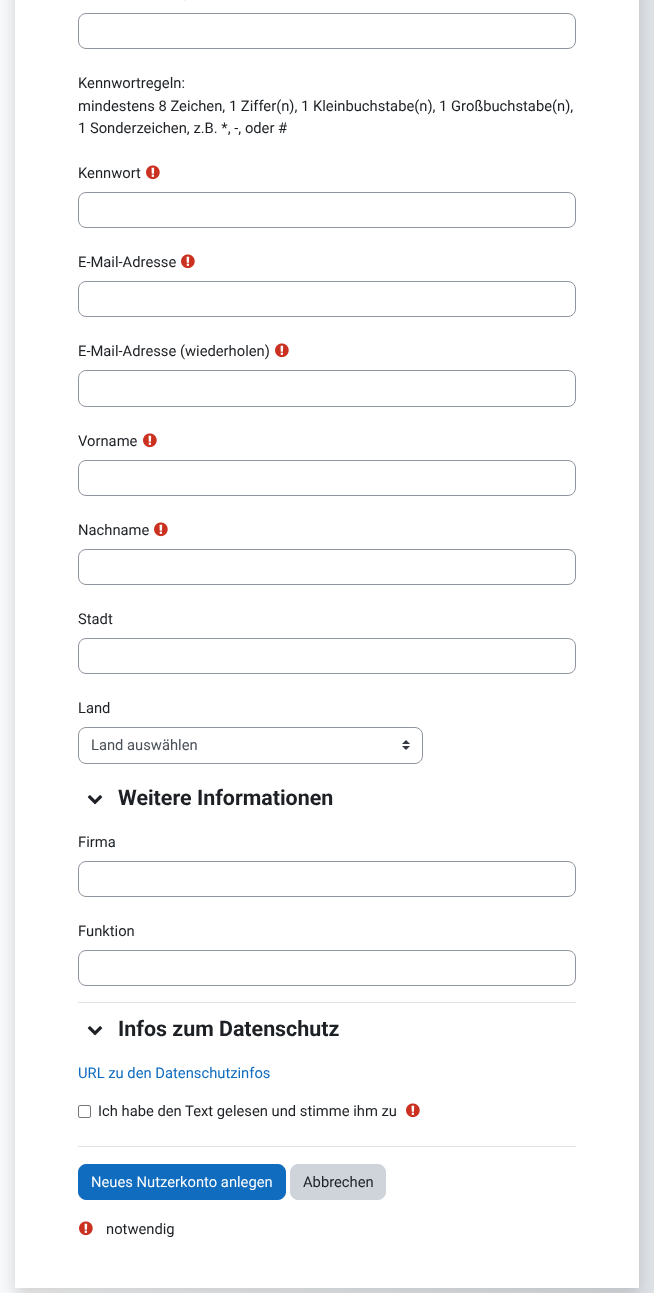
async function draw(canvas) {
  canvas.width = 654;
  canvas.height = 1293;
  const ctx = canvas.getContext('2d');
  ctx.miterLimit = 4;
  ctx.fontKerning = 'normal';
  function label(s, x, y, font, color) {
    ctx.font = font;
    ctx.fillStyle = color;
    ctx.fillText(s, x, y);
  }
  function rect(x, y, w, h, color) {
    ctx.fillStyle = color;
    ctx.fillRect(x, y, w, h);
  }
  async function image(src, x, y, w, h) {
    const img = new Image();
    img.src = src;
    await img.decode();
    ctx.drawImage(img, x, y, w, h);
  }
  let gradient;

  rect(0, 0, 654, 1293, '#fff');
  gradient = ctx.createLinearGradient(0, 570, 654, 570);
  gradient.addColorStop(0, '#f8f9fa');
  gradient.addColorStop(1, '#dee2e6');
  ctx.fillStyle = gradient;
  ctx.fillRect(0, 0, 654, 1293);
  ctx.fillStyle = '#00000026';
  ctx.filter = 'blur(8px)';
  ctx.beginPath();
  ctx.rect(15, -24, 624, 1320);
  ctx.fill();
  ctx.filter = 'none';
  rect(15, 0, 624, 1288, '#fff');
  await image('assets/img1.png', 184, 0, 2, 1);
  ctx.beginPath();
  ctx.roundRect(78.5, 13.5, 497, 35, 7.5);
  ctx.strokeStyle = '#8f959e';
  ctx.stroke();
  label('Kennwortregeln:', 78, 88, '14.75px Roboto', '#1d2125');
  label('mindestens 8 Zeichen, 1 Ziffer(n), 1 Kleinbuchstabe(n), 1 Großbuchstabe(n),', 78, 111, '14.75px Roboto', '#1d2125');
  label('1 Sonderzeichen, z.B. *, -, oder #', 78, 133, '14.75px Roboto', '#1d2125');
  label('Kennwort', 78, 178, '14.75px Roboto', '#1d2125');
  await image('assets/img2.png', 146, 165, 14, 15);
  ctx.beginPath();
  ctx.roundRect(78.5, 192.5, 497, 35, 7.5);
  ctx.stroke();
  label('E-Mail-Adresse', 78, 267, '14.75px Roboto', '#1d2125');
  await image('assets/img2.png', 181, 254, 14, 15);
  ctx.beginPath();
  ctx.roundRect(78.5, 281.5, 497, 35, 7.5);
  ctx.stroke();
  label('E-Mail-Adresse (wiederholen)', 78, 356, '14.75px Roboto', '#1d2125');
  await image('assets/img2.png', 275, 343, 14, 15);
  ctx.beginPath();
  ctx.roundRect(78.5, 370.5, 497, 36, 7.5);
  ctx.stroke();
  label('Vorname', 78, 446, '14.75px Roboto', '#1d2125');
  await image('assets/img2.png', 143, 433, 14, 15);
  ctx.beginPath();
  ctx.roundRect(78.5, 460.5, 497, 35, 7.5);
  ctx.stroke();
  label('Nachname', 78, 535, '14.75px Roboto', '#1d2125');
  await image('assets/img2.png', 154, 522, 14, 15);
  ctx.beginPath();
  ctx.roundRect(78.5, 549.5, 497, 35, 7.5);
  ctx.stroke();
  label('Stadt', 78, 624, '14.75px Roboto', '#1d2125');
  ctx.beginPath();
  ctx.roundRect(78.5, 638.5, 497, 35, 7.5);
  ctx.stroke();
  label('Land', 78, 713, '14.75px Roboto', '#1d2125');
  await image('assets/img3.png', 402, 740, 8, 10);
  ctx.beginPath();
  ctx.roundRect(78.5, 727.5, 344, 36, 7.5);
  ctx.stroke();
  label('Land auswählen', 91, 750, '14.75px Roboto', '#495057');
  rect(78, 1002, 498, 1, '#dee2e6');
  await image('assets/img4.png', 87, 795, 16, 10);
  label('Weitere Informationen', 118, 805, 'bold 21.4px Roboto', '#1d2125');
  label('Firma', 78, 847, '14.75px Roboto', '#1d2125');
  ctx.beginPath();
  ctx.roundRect(78.5, 861.5, 497, 35, 7.5);
  ctx.stroke();
  label('Funktion', 78, 936, '14.75px Roboto', '#1d2125');
  ctx.beginPath();
  ctx.roundRect(78.5, 950.5, 497, 35, 7.5);
  ctx.stroke();
  rect(78, 1146, 498, 1, '#dee2e6');
  await image('assets/img4.png', 87, 1026, 16, 10);
  label('Infos zum Datenschutz', 118, 1036, 'bold 21.4px Roboto', '#1d2125');
  label('URL zu den Datenschutzinfos', 78, 1078, '14.75px Roboto', '#0f6cbf');
  ctx.beginPath();
  ctx.roundRect(78.5, 1105.5, 12, 12, 1.5);
  ctx.strokeStyle = '#767676';
  ctx.stroke();
  label('Ich habe den Text gelesen und stimme ihm zu', 98, 1116, '14.75px Roboto', '#1d2125');
  await image('assets/img2.png', 406, 1103, 14, 15);
  ctx.fillStyle = '#0f6cbf';
  ctx.beginPath();
  ctx.roundRect(78.5, 1164.5, 207, 35, 7.5);
  ctx.fill();
  ctx.strokeStyle = '#0f6cbf';
  ctx.stroke();
  label('Neues Nutzerkonto anlegen', 91, 1187, '14.75px Roboto', '#fff');
  ctx.fillStyle = '#ced4da';
  ctx.beginPath();
  ctx.roundRect(290.5, 1164.5, 95, 35, 7.5);
  ctx.fill();
  ctx.strokeStyle = '#ced4da';
  ctx.stroke();
  label('Abbrechen', 303, 1187, '14.75px Roboto', '#1d2125');
  await image('assets/img2.png', 79, 1221, 14, 15);
  label('notwendig', 106, 1234, '14.75px Roboto', '#1d2125');
}

draw(document.querySelector('canvas'));
